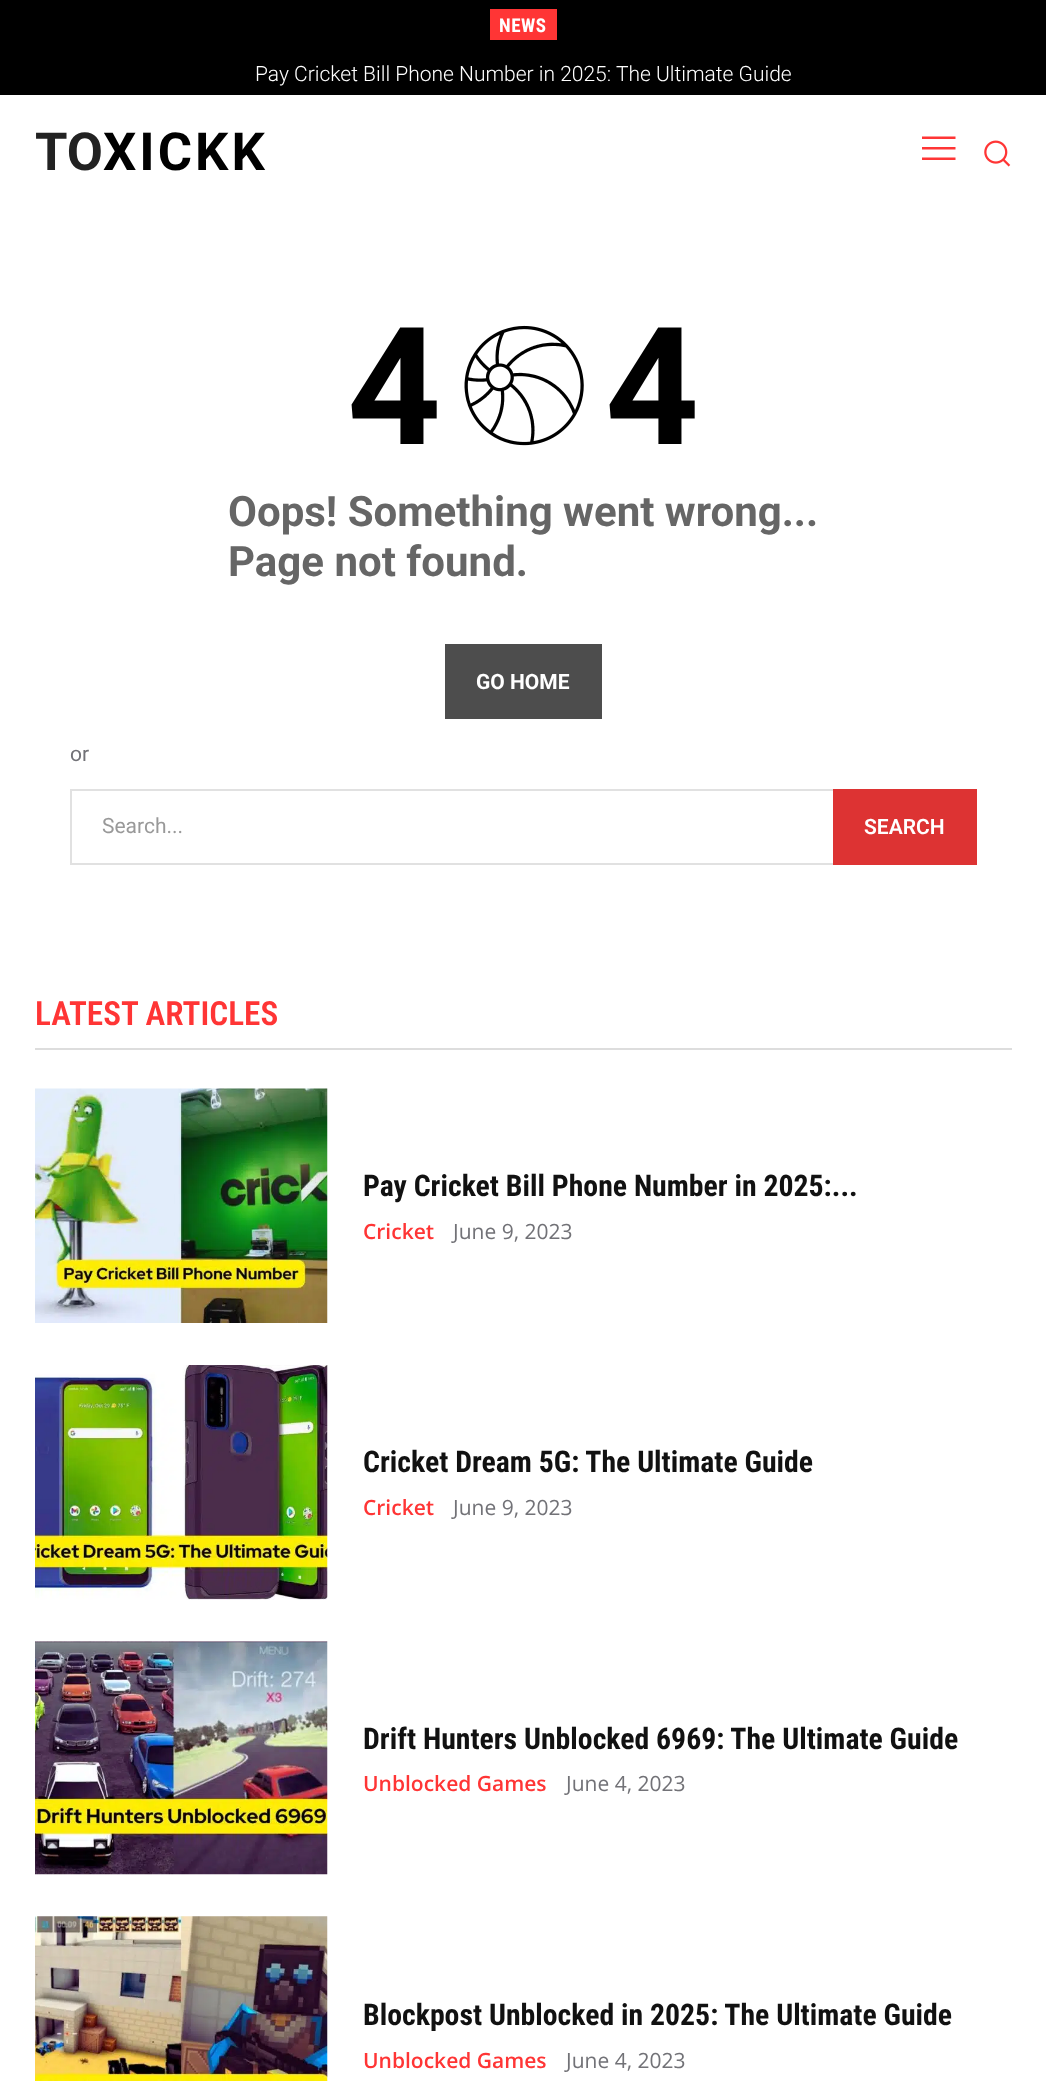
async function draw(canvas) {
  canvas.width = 1046;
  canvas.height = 2081;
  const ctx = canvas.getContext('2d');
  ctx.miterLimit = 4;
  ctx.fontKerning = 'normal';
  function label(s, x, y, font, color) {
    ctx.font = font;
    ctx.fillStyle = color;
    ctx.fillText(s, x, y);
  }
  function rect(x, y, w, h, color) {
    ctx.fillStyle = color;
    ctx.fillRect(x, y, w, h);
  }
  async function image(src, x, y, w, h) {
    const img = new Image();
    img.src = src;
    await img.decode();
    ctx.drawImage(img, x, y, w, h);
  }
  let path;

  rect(0, 0, 1046, 2081, '#fff');
  rect(0, 0, 1046, 95, '#000');
  rect(490, 9, 67, 31, '#ff3535');
  ctx.letterSpacing = '0.5px';
  label('NEWS', 499, 32, 'bold 19px Roboto Condensed', '#fff');
  ctx.letterSpacing = '0px';
  label('Pay Cricket Bill Phone Number in 2025: The Ultimate Guide', 255, 81, '300 21px Roboto', '#fff');
  label('TO', 35, 170, 'bold 52.5px Roboto', '#222');
  ctx.letterSpacing = '3px';
  label('XICKK', 103, 170, 'bold 52.5px Roboto', '#000');
  ctx.fillStyle = '#ff3535';
  path = new Path2D('M922 147H955.5V149.5H922ZM922 136.5H955.5V139H922ZM922 157.5H955.5V160H922Z');
  ctx.fill(path);
  await image('assets/img1.png', 984, 140, 27, 27);
  ctx.letterSpacing = '0px';
  label('4', 347, 444, 'bold 164px Roboto', '#000');
  await image('assets/img2.png', 464, 325, 120, 121);
  label('4', 605, 444, 'bold 164px Roboto', '#000');
  label('Oops! Something went wrong...', 228, 526, 'bold 42px Roboto', '#666');
  label('Page not found.', 228, 576, 'bold 42px Roboto', '#666');
  rect(445, 644, 157, 75, '#4d4d4d');
  label('GO HOME', 476, 689, 'bold 21px Roboto', '#fff');
  label('or', 70, 761, '21px Roboto', '#727277');
  ctx.strokeStyle = '#e1e1e1';
  ctx.lineWidth = 2;
  ctx.strokeRect(71, 790, 905, 74);
  label('Search...', 102, 833, '21px Roboto', '#999');
  rect(833, 789, 144, 76, '#d33');
  label('SEARCH', 864, 834, '600 21px Roboto', '#fff');
  label('LATEST ARTICLES', 35, 1025, '600 33.25px Roboto Condensed', '#ff3535');
  rect(35, 1048, 977, 2, '#ddd');
  await image('assets/img3.png', 35, 1088, 293, 235);
  label('Pay Cricket Bill Phone Number in 2025:...', 363, 1196, 'bold 29.75px Roboto Condensed', '#111');
  label('Cricket', 363, 1239, '600 21px Open Sans', '#ff3535');
  label('June 9, 2023', 453, 1239, '21px Open Sans', '#727277');
  await image('assets/img4.png', 35, 1365, 293, 235);
  label('Cricket Dream 5G: The Ultimate Guide', 363, 1472, 'bold 29.75px Roboto Condensed', '#111');
  label('Cricket', 363, 1515, '600 21px Open Sans', '#ff3535');
  label('June 9, 2023', 453, 1515, '21px Open Sans', '#727277');
  await image('assets/img5.png', 35, 1641, 293, 234);
  label('Drift Hunters Unblocked 6969: The Ultimate Guide', 363, 1749, 'bold 29.75px Roboto Condensed', '#111');
  label('Unblocked Games', 363, 1791, '600 21px Open Sans', '#ff3535');
  label('June 4, 2023', 566, 1791, '21px Open Sans', '#727277');
  await image('assets/img6.png', 35, 1916, 293, 165);
  label('Blockpost Unblocked in 2025: The Ultimate Guide', 363, 2025, 'bold 29.75px Roboto Condensed', '#111');
  label('Unblocked Games', 363, 2068, '600 21px Open Sans', '#ff3535');
  label('June 4, 2023', 566, 2068, '21px Open Sans', '#727277');
}

draw(document.querySelector('canvas'));
